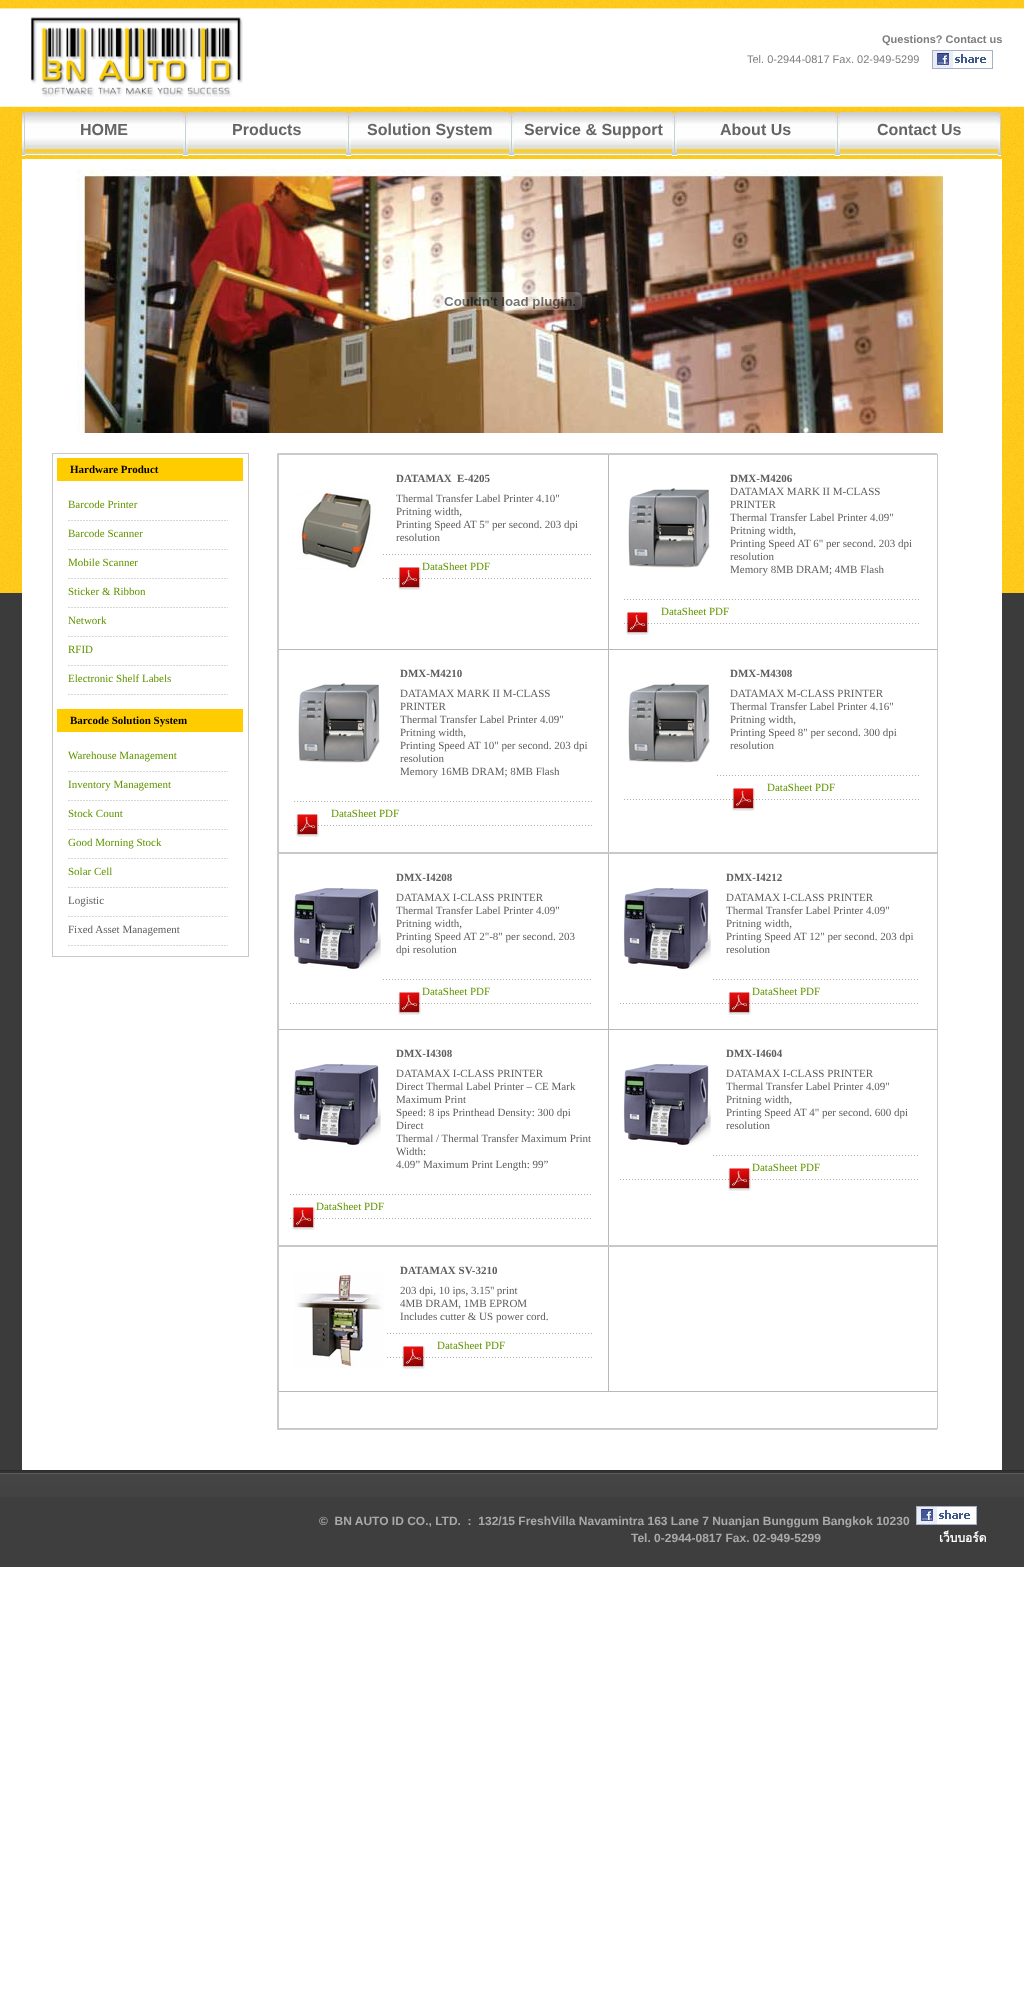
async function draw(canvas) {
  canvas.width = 1024;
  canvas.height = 2001;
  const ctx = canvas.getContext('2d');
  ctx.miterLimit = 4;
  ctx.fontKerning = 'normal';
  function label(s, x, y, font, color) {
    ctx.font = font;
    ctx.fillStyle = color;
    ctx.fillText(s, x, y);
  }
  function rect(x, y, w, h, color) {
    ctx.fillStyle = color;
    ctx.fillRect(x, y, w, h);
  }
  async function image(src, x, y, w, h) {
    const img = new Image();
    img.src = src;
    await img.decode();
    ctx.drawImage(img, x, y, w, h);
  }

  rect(0, 0, 1024, 2001, '#fff');
  rect(0, 593, 1024, 877, '#3b3b3b');
  await image('assets/img1.png', 0, 0, 1024, 593);
  await image('assets/img2.png', 30, 17, 213, 80);
  label('Questions? Contact us', 882, 43, 'bold 11px Liberation Sans', '#7e7e7e');
  label('Tel. 0-2944-0817 Fax. 02-949-5299', 747, 63, '11px Liberation Sans', '#7e7e7e');
  await image('assets/img3.png', 932, 50, 61, 19);
  await image('assets/img4.png', 22, 112, 3, 44);
  await image('assets/img5.png', 25, 112, 158, 44);
  label('HOME', 80, 135, 'bold 16px Liberation Sans', '#666464');
  await image('assets/img6.png', 183, 112, 5, 44);
  await image('assets/img5.png', 188, 112, 158, 44);
  label('Products', 232, 135, 'bold 16px Liberation Sans', '#666464');
  await image('assets/img6.png', 346, 112, 5, 44);
  await image('assets/img5.png', 351, 112, 158, 44);
  label('Solution System', 367, 135, 'bold 16px Liberation Sans', '#666464');
  await image('assets/img6.png', 509, 112, 5, 44);
  await image('assets/img5.png', 514, 112, 158, 44);
  label('Service & Support', 524, 135, 'bold 16px Liberation Sans', '#666464');
  await image('assets/img6.png', 672, 112, 5, 44);
  await image('assets/img5.png', 677, 112, 158, 44);
  label('About Us', 720, 135, 'bold 16px Liberation Sans', '#666464');
  await image('assets/img6.png', 835, 112, 5, 44);
  await image('assets/img5.png', 840, 112, 158, 44);
  label('Contact Us', 877, 135, 'bold 16px Liberation Sans', '#666464');
  await image('assets/img4.png', 998, 112, 3, 44);
  rect(22, 159, 980, 1311, '#fff');
  await image('assets/img7.png', 77, 169, 866, 264);
  await image('assets/img8.png', 438, 292, 144, 18);
  rect(52, 453, 197, 504, '#c8c8c8');
  rect(53, 454, 195, 502, '#fff');
  rect(57, 458, 186, 23, '#fc0');
  label('Hardware Product', 70, 473, 'bold 11px Liberation Serif', '#000');
  await image('assets/img9.png', 68, 520, 160, 1);
  label('Barcode Printer', 68, 508, '11px Liberation Serif', '#619500');
  await image('assets/img9.png', 68, 549, 160, 1);
  label('Barcode Scanner', 68, 537, '11px Liberation Serif', '#619500');
  await image('assets/img9.png', 68, 578, 160, 1);
  label('Mobile Scanner', 68, 566, '11px Liberation Serif', '#619500');
  await image('assets/img9.png', 68, 607, 160, 1);
  label('Sticker & Ribbon', 68, 595, '11px Liberation Serif', '#619500');
  await image('assets/img9.png', 68, 636, 160, 1);
  label('Network', 68, 624, '11px Liberation Serif', '#619500');
  await image('assets/img9.png', 68, 665, 160, 1);
  label('RFID', 68, 653, '11px Liberation Serif', '#619500');
  await image('assets/img9.png', 68, 694, 160, 1);
  label('Electronic Shelf Labels', 68, 682, '11px Liberation Serif', '#619500');
  rect(57, 709, 186, 23, '#fc0');
  label('Barcode Solution System', 70, 724, 'bold 11px Liberation Serif', '#000');
  await image('assets/img9.png', 68, 771, 160, 1);
  label('Warehouse Management', 68, 759, '11px Liberation Serif', '#619500');
  await image('assets/img9.png', 68, 800, 160, 1);
  label('Inventory Management', 68, 788, '11px Liberation Serif', '#619500');
  await image('assets/img9.png', 68, 829, 160, 1);
  label('Stock Count', 68, 817, '11px Liberation Serif', '#619500');
  await image('assets/img9.png', 68, 858, 160, 1);
  label('Good Morning Stock', 68, 846, '11px Liberation Serif', '#619500');
  await image('assets/img9.png', 68, 887, 160, 1);
  label('Solar Cell', 68, 875, '11px Liberation Serif', '#619500');
  await image('assets/img9.png', 68, 916, 160, 1);
  label('Logistic', 68, 904, '11px Liberation Serif', '#5e5e5e');
  await image('assets/img9.png', 68, 945, 160, 1);
  label('Fixed Asset Management', 68, 933, '11px Liberation Serif', '#5e5e5e');
  ctx.strokeStyle = '#ccc';
  ctx.strokeRect(277.5, 453.5, 659, 976);
  rect(278, 454, 660, 975, '#c8c8c8');
  rect(279, 455, 658, 397, '#fff');
  rect(279, 649, 658, 1, '#b8b8b8');
  rect(608, 455, 1, 194, '#b8b8b8');
  label('DATAMAX', 396, 482, 'bold 11px Liberation Serif', '#5e5e5e');
  label('E-4205', 457, 482, 'bold 11px Liberation Serif', '#5e5e5e');
  await image('assets/img10.png', 290, 488, 91, 91);
  label('Thermal Transfer Label Printer 4.10"', 396, 502, '11px Liberation Serif', '#5e5e5e');
  label('Pritning width,', 396, 515, '11px Liberation Serif', '#5e5e5e');
  label('Printing Speed AT 5" per second. 203 dpi', 396, 528, '11px Liberation Serif', '#5e5e5e');
  label('resolution', 396, 541, '11px Liberation Serif', '#5e5e5e');
  await image('assets/img11.png', 381, 554, 210, 1);
  await image('assets/img11.png', 381, 578, 210, 1);
  await image('assets/img12.png', 398, 567, 23, 23);
  label('DataSheet PDF', 422, 570, '11px Liberation Serif', '#619500');
  label('DMX-M4206', 730, 482, 'bold 11px Liberation Serif', '#5e5e5e');
  await image('assets/img13.png', 628, 488, 82, 80);
  label('DATAMAX MARK II M-CLASS', 730, 495, '11px Liberation Serif', '#5e5e5e');
  label('PRINTER', 730, 508, '11px Liberation Serif', '#5e5e5e');
  label('Thermal Transfer Label Printer 4.09"', 730, 521, '11px Liberation Serif', '#5e5e5e');
  label('Pritning width,', 730, 534, '11px Liberation Serif', '#5e5e5e');
  label('Printing Speed AT 6" per second. 203 dpi', 730, 547, '11px Liberation Serif', '#5e5e5e');
  label('resolution', 730, 560, '11px Liberation Serif', '#5e5e5e');
  label('Memory 8MB DRAM; 4MB Flash', 730, 573, '11px Liberation Serif', '#5e5e5e');
  await image('assets/img14.png', 624, 599, 295, 1);
  await image('assets/img14.png', 624, 623, 295, 1);
  await image('assets/img15.png', 626, 612, 23, 23);
  label('DataSheet PDF', 661, 615, '11px Liberation Serif', '#619500');
  rect(608, 650, 1, 202, '#b8b8b8');
  label('DMX-M4210', 400, 677, 'bold 11px Liberation Serif', '#5e5e5e');
  await image('assets/img13.png', 298, 683, 82, 80);
  label('DATAMAX MARK II M-CLASS', 400, 697, '11px Liberation Serif', '#5e5e5e');
  label('PRINTER', 400, 710, '11px Liberation Serif', '#5e5e5e');
  label('Thermal Transfer Label Printer 4.09"', 400, 723, '11px Liberation Serif', '#5e5e5e');
  label('Pritning width,', 400, 736, '11px Liberation Serif', '#5e5e5e');
  label('Printing Speed AT 10" per second. 203 dpi', 400, 749, '11px Liberation Serif', '#5e5e5e');
  label('resolution', 400, 762, '11px Liberation Serif', '#5e5e5e');
  label('Memory 16MB DRAM; 8MB Flash', 400, 775, '11px Liberation Serif', '#5e5e5e');
  await image('assets/img16.png', 294, 801, 298, 1);
  await image('assets/img16.png', 294, 825, 298, 1);
  await image('assets/img17.png', 296, 814, 23, 23);
  label('DataSheet PDF', 331, 817, '11px Liberation Serif', '#619500');
  label('DMX-M4308', 730, 677, 'bold 11px Liberation Serif', '#5e5e5e');
  await image('assets/img18.png', 624, 683, 91, 93);
  label('DATAMAX M-CLASS PRINTER', 730, 697, '11px Liberation Serif', '#5e5e5e');
  label('Thermal Transfer Label Printer 4.16"', 730, 710, '11px Liberation Serif', '#5e5e5e');
  label('Pritning width,', 730, 723, '11px Liberation Serif', '#5e5e5e');
  label('Printing Speed 8" per second. 300 dpi', 730, 736, '11px Liberation Serif', '#5e5e5e');
  label('resolution', 730, 749, '11px Liberation Serif', '#5e5e5e');
  await image('assets/img19.png', 715, 775, 204, 1);
  await image('assets/img14.png', 624, 799, 295, 1);
  await image('assets/img12.png', 732, 788, 23, 23);
  label('DataSheet PDF', 767, 791, '11px Liberation Serif', '#619500');
  rect(279, 854, 658, 391, '#fff');
  rect(279, 1029, 658, 1, '#b8b8b8');
  rect(608, 854, 1, 175, '#b8b8b8');
  label('DMX-I4208', 396, 881, 'bold 11px Liberation Serif', '#5e5e5e');
  await image('assets/img20.png', 290, 888, 91, 92);
  label('DATAMAX I-CLASS PRINTER', 396, 901, '11px Liberation Serif', '#5e5e5e');
  label('Thermal Transfer Label Printer 4.09"', 396, 914, '11px Liberation Serif', '#5e5e5e');
  label('Pritning width,', 396, 927, '11px Liberation Serif', '#5e5e5e');
  label('Printing Speed AT 2"-8" per second. 203', 396, 940, '11px Liberation Serif', '#5e5e5e');
  label('dpi resolution', 396, 953, '11px Liberation Serif', '#5e5e5e');
  await image('assets/img11.png', 381, 979, 210, 1);
  await image('assets/img21.png', 290, 1003, 301, 1);
  await image('assets/img12.png', 398, 992, 23, 23);
  label('DataSheet PDF', 422, 995, '11px Liberation Serif', '#619500');
  label('DMX-I4212', 726, 881, 'bold 11px Liberation Serif', '#5e5e5e');
  await image('assets/img20.png', 620, 888, 91, 92);
  label('DATAMAX I-CLASS PRINTER', 726, 901, '11px Liberation Serif', '#5e5e5e');
  label('Thermal Transfer Label Printer 4.09"', 726, 914, '11px Liberation Serif', '#5e5e5e');
  label('Pritning width,', 726, 927, '11px Liberation Serif', '#5e5e5e');
  label('Printing Speed AT 12" per second. 203 dpi', 726, 940, '11px Liberation Serif', '#5e5e5e');
  label('resolution', 726, 953, '11px Liberation Serif', '#5e5e5e');
  await image('assets/img22.png', 711, 979, 207, 1);
  await image('assets/img16.png', 620, 1003, 298, 1);
  await image('assets/img23.png', 728, 992, 23, 23);
  label('DataSheet PDF', 752, 995, '11px Liberation Serif', '#619500');
  rect(608, 1030, 1, 215, '#b8b8b8');
  label('DMX-I4308', 396, 1057, 'bold 11px Liberation Serif', '#5e5e5e');
  await image('assets/img24.png', 291, 1064, 90, 82);
  label('DATAMAX I-CLASS PRINTER', 396, 1077, '11px Liberation Serif', '#5e5e5e');
  label('Direct Thermal Label Printer – CE Mark', 396, 1090, '11px Liberation Serif', '#5e5e5e');
  label('Maximum Print', 396, 1103, '11px Liberation Serif', '#5e5e5e');
  label('Speed: 8 ips Printhead Density: 300 dpi', 396, 1116, '11px Liberation Serif', '#5e5e5e');
  label('Direct', 396, 1129, '11px Liberation Serif', '#5e5e5e');
  label('Thermal / Thermal Transfer Maximum Print', 396, 1142, '11px Liberation Serif', '#5e5e5e');
  label('Width:', 396, 1155, '11px Liberation Serif', '#5e5e5e');
  label('4.09” Maximum Print Length: 99”', 396, 1168, '11px Liberation Serif', '#5e5e5e');
  await image('assets/img21.png', 290, 1194, 301, 1);
  await image('assets/img21.png', 290, 1218, 301, 1);
  await image('assets/img17.png', 292, 1207, 23, 23);
  label('DataSheet PDF', 316, 1210, '11px Liberation Serif', '#619500');
  label('DMX-I4604', 726, 1057, 'bold 11px Liberation Serif', '#5e5e5e');
  await image('assets/img20.png', 620, 1064, 91, 92);
  label('DATAMAX I-CLASS PRINTER', 726, 1077, '11px Liberation Serif', '#5e5e5e');
  label('Thermal Transfer Label Printer 4.09"', 726, 1090, '11px Liberation Serif', '#5e5e5e');
  label('Pritning width,', 726, 1103, '11px Liberation Serif', '#5e5e5e');
  label('Printing Speed AT 4" per second. 600 dpi', 726, 1116, '11px Liberation Serif', '#5e5e5e');
  label('resolution', 726, 1129, '11px Liberation Serif', '#5e5e5e');
  await image('assets/img22.png', 711, 1155, 207, 1);
  await image('assets/img16.png', 620, 1179, 298, 1);
  await image('assets/img23.png', 728, 1168, 23, 23);
  label('DataSheet PDF', 752, 1171, '11px Liberation Serif', '#619500');
  rect(279, 1247, 658, 181, '#fff');
  rect(279, 1391, 658, 1, '#b8b8b8');
  rect(608, 1247, 1, 144, '#b8b8b8');
  label('DATAMAX SV-3210', 400, 1274, 'bold 11px Liberation Serif', '#5e5e5e');
  await image('assets/img25.png', 294, 1273, 91, 94);
  label('203 dpi, 10 ips, 3.15\'\' print', 400, 1294, '11px Liberation Serif', '#5e5e5e');
  label('4MB DRAM, 1MB EPROM', 400, 1307, '11px Liberation Serif', '#5e5e5e');
  label('Includes cutter & US power cord.', 400, 1320, '11px Liberation Serif', '#5e5e5e');
  await image('assets/img22.png', 385, 1333, 207, 1);
  await image('assets/img22.png', 385, 1357, 207, 1);
  await image('assets/img23.png', 402, 1346, 23, 23);
  label('DataSheet PDF', 437, 1349, '11px Liberation Serif', '#619500');
  rect(0, 1497, 1024, 70, '#3e3e3e');
  await image('assets/img26.png', 0, 1470, 1024, 27);
  label('©  BN AUTO ID CO., LTD.  :  132/15 FreshVilla Navamintra 163 Lane 7 Nuanjan Bunggum Bangkok 10230', 319, 1525, 'bold 12px Liberation Sans', '#a9a9a9');
  await image('assets/img3.png', 916, 1506, 61, 19);
  label('Tel. 0-2944-0817 Fax. 02-949-5299', 631, 1542, 'bold 12px Liberation Sans', '#a9a9a9');
  label('เว็บบอร์ด', 939, 1542, 'bold 12px Loma', '#fff');
}

draw(document.querySelector('canvas'));
